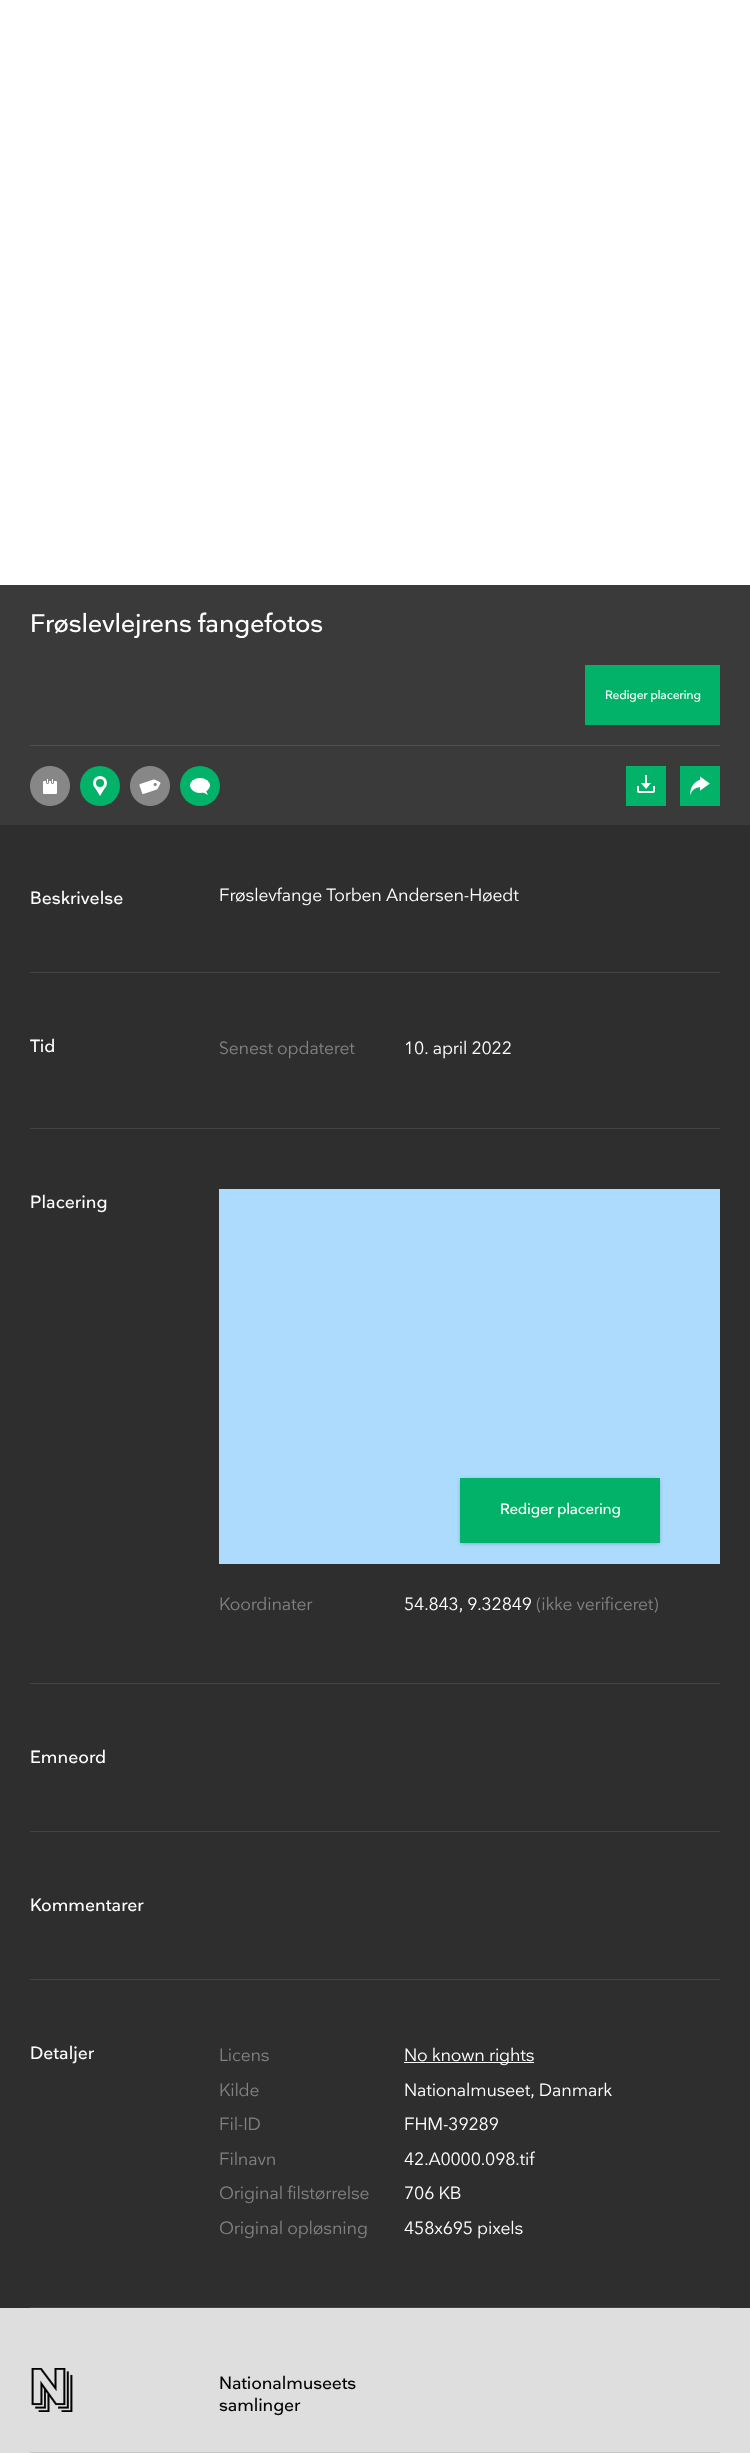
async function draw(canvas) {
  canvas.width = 750;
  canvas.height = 2453;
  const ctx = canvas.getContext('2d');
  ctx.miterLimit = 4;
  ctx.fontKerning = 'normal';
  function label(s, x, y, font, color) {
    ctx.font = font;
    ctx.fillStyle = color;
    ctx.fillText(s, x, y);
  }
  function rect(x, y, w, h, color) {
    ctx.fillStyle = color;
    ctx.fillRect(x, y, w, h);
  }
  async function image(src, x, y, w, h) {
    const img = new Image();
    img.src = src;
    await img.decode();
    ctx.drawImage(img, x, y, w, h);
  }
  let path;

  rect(0, 0, 750, 2453, '#2e2e2e');
  rect(0, 0, 750, 585, '#fff');
  rect(0, 585, 750, 240, '#3a3a3a');
  ctx.letterSpacing = '-0.25px';
  label('Frøslevlejrens fangefotos', 30, 632, '500 25.25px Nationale', '#fff');
  rect(585, 665, 135, 60, '#02b268');
  label('Rediger placering', 605, 699, '500 12px Nationale', '#fff');
  rect(30, 745, 690, 1, '#4e4e4e');
  await image('assets/img1.png', 30, 766, 40, 40);
  ctx.fillStyle = '#02b268';
  ctx.beginPath();
  ctx.arc(100, 786, 20, 0, 2 * Math.PI);
  ctx.fill();
  ctx.fillStyle = '#fff';
  ctx.beginPath();
  ctx.arc(100, 783, 7, 0, 2 * Math.PI);
  ctx.fill();
  path = new Path2D('M94 786L100 788.5L106 786L100 796Z');
  ctx.fill(path);
  ctx.fillStyle = '#02b268';
  ctx.beginPath();
  ctx.arc(100, 783, 4, 0, 2 * Math.PI);
  ctx.fill();
  await image('assets/img2.png', 130, 766, 40, 40);
  ctx.beginPath();
  ctx.arc(200, 786, 20, 0, 2 * Math.PI);
  ctx.fill();
  ctx.fillStyle = '#fff';
  ctx.beginPath();
  ctx.ellipse(200, 785.5, 10, 7.5, 0, 0, 2 * Math.PI);
  ctx.fill();
  path = new Path2D('M202.5 792L208 795L205.5 790Z');
  ctx.fill(path);
  rect(626, 766, 40, 40, '#02b268');
  await image('assets/img3.png', 637, 775, 18, 18);
  rect(680, 766, 40, 40, '#02b268');
  await image('assets/img4.png', 690, 776, 20, 20);
  rect(30, 972, 690, 1, '#434343');
  ctx.letterSpacing = '0px';
  label('Beskrivelse', 30, 904, '500 17.5px Nationale', '#fff');
  ctx.letterSpacing = '-0.15px';
  label('Frøslevfange Torben Andersen-Høedt', 219, 901, '17.5px Nationale', '#fff');
  rect(30, 1128, 690, 1, '#434343');
  ctx.letterSpacing = '0px';
  label('Tid', 30, 1052, '500 17.5px Nationale', '#fff');
  ctx.letterSpacing = '-0.15px';
  label('Senest opdateret', 219, 1054, '17.5px Nationale', '#828282');
  label('10. april 2022', 404, 1054, '17.5px Nationale', '#fff');
  rect(30, 1683, 690, 1, '#434343');
  ctx.letterSpacing = '0px';
  label('Placering', 30, 1208, '500 17.5px Nationale', '#fff');
  rect(219, 1189, 501, 375, '#acdbfd');
  ctx.fillStyle = '#0000004d';
  ctx.filter = 'blur(2px)';
  ctx.beginPath();
  ctx.rect(461, 1480, 198, 63);
  ctx.fill();
  ctx.filter = 'none';
  rect(460, 1478, 200, 65, '#02b268');
  ctx.letterSpacing = '-0.25px';
  label('Rediger placering', 500, 1514, '500 15px Nationale', '#fff');
  ctx.letterSpacing = '-0.15px';
  label('Koordinater', 219, 1610, '17.5px Nationale', '#828282');
  label('54.843, 9.32849', 404, 1610, '17.5px Nationale', '#fff');
  label('(ikke verificeret)', 536, 1610, '17.5px Nationale', '#828282');
  rect(30, 1831, 690, 1, '#434343');
  ctx.letterSpacing = '0px';
  label('Emneord', 30, 1763, '500 17.5px Nationale', '#fff');
  rect(30, 1979, 690, 1, '#434343');
  label('Kommentarer', 30, 1911, '500 17.5px Nationale', '#fff');
  rect(30, 2307, 690, 1, '#434343');
  label('Detaljer', 30, 2059, '500 17.5px Nationale', '#fff');
  ctx.letterSpacing = '-0.15px';
  label('Licens', 219, 2061, '17.5px Nationale', '#828282');
  rect(404, 2062, 130, 1, '#fff');
  label('No known rights', 404, 2061, '17.5px Nationale', '#fff');
  label('Kilde', 219, 2096, '17.5px Nationale', '#828282');
  label('Nationalmuseet, Danmark', 404, 2096, '17.5px Nationale', '#fff');
  label('Fil-ID', 219, 2130, '17.5px Nationale', '#828282');
  label('FHM-39289', 404, 2130, '17.5px Nationale', '#fff');
  label('Filnavn', 219, 2165, '17.5px Nationale', '#828282');
  label('42.A0000.098.tif', 404, 2165, '17.5px Nationale', '#fff');
  label('Original filstørrelse', 219, 2199, '17.5px Nationale', '#828282');
  label('706 KB', 404, 2199, '17.5px Nationale', '#fff');
  label('Original opløsning', 219, 2234, '17.5px Nationale', '#828282');
  label('458x695 pixels', 404, 2234, '17.5px Nationale', '#fff');
  rect(0, 2308, 750, 145, '#dedede');
  rect(30, 2452, 690, 1, '#c8c8c8');
  await image('assets/img5.png', 31, 2368, 42, 44);
  label('Nationalmuseets', 219, 2389, '500 17.5px Nationale', '#000');
  label('samlinger', 219, 2411, '500 17.5px Nationale', '#000');
}

draw(document.querySelector('canvas'));
